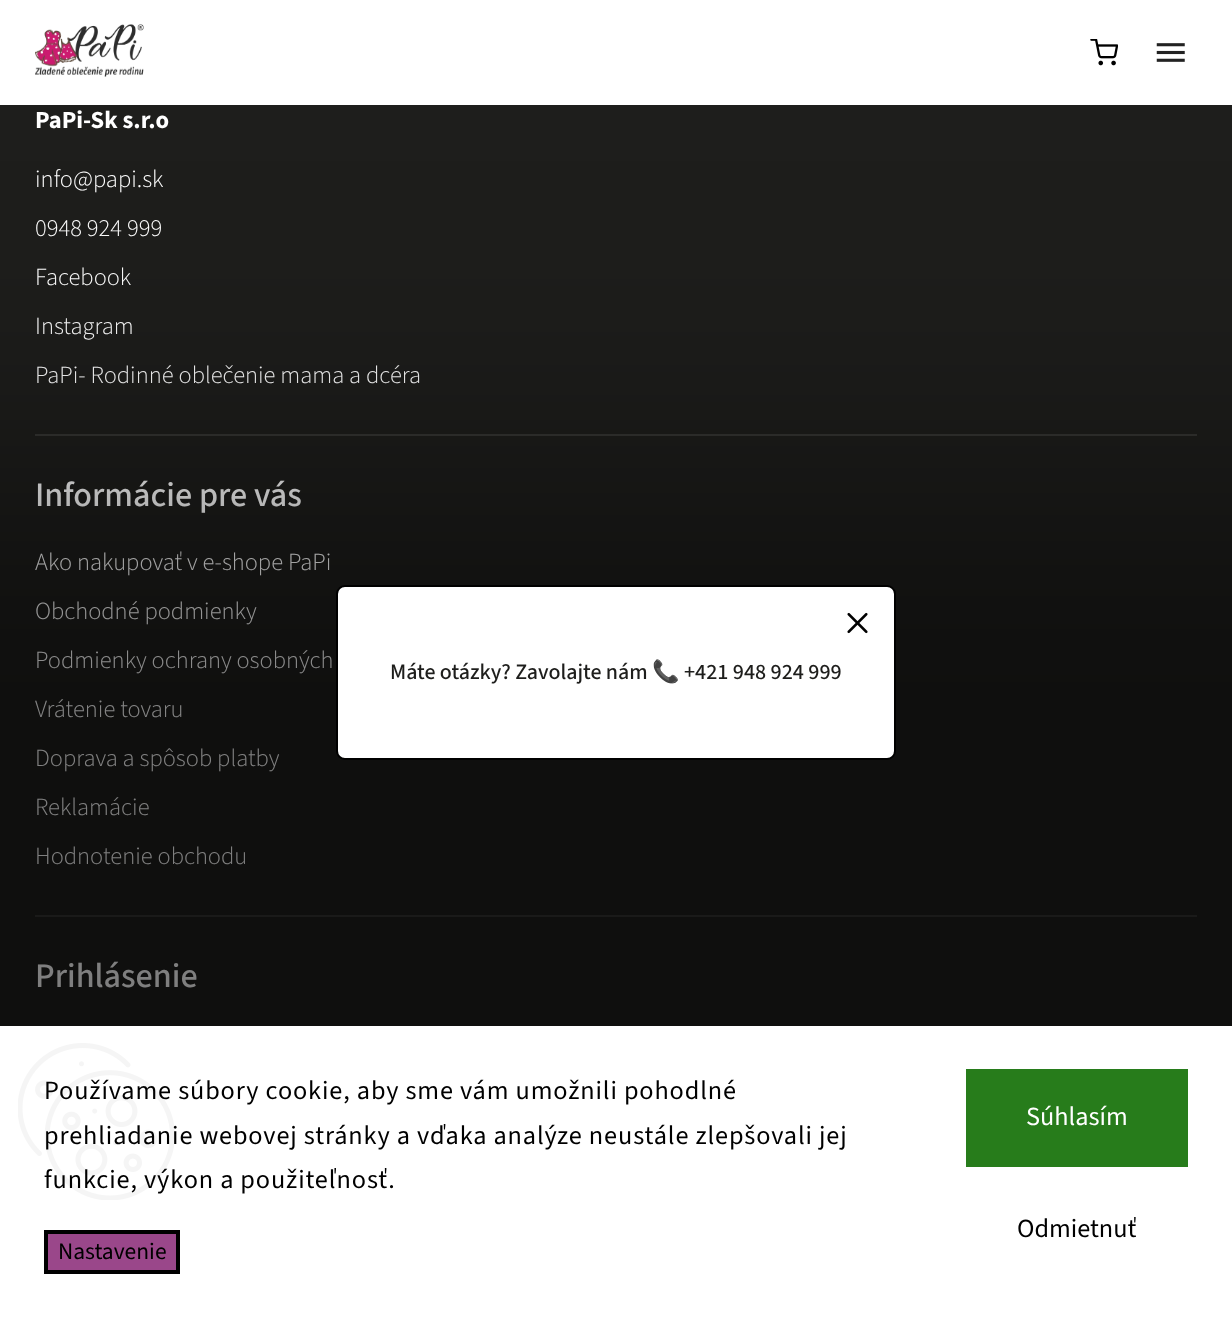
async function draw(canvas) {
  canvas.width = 1232;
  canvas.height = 1343;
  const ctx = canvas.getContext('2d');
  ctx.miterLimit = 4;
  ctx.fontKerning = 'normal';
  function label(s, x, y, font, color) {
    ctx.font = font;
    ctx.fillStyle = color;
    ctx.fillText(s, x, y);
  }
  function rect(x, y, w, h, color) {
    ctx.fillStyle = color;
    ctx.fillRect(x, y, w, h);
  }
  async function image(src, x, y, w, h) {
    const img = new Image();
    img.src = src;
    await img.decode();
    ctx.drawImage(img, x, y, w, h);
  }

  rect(0, 0, 1232, 1343, '#1e1e1c');
  rect(0, 0, 1232, 105, '#fff');
  await image('assets/img1.png', 35, 24, 109, 53);
  await image('assets/img2.png', 1090, 39, 28, 27);
  await image('assets/img3.png', 1156, 43, 29, 19);
  rect(35, 434, 1162, 2, '#353533');
  label('PaPi-Sk s.r.o', 35, 128, 'bold 24.5px "Source Sans 3"', '#fff');
  label('info@papi.sk', 35, 187, '300 24.5px "Source Sans 3"', '#fff');
  label('0948 924 999', 35, 236, '300 24.5px "Source Sans 3"', '#fff');
  label('Facebook', 35, 285, '300 24.5px "Source Sans 3"', '#fff');
  label('Instagram', 35, 334, '300 24.5px "Source Sans 3"', '#fff');
  label('PaPi- Rodinné oblečenie mama a dcéra', 35, 383, '300 24.5px "Source Sans 3"', '#fff');
  rect(35, 915, 1162, 2, '#353533');
  label('Informácie pre vás', 35, 506, '500 34.25px "Source Sans 3"', '#fff');
  label('Ako nakupovať v e-shope PaPi', 35, 570, '300 24.5px "Source Sans 3"', '#fff');
  label('Obchodné podmienky', 35, 619, '300 24.5px "Source Sans 3"', '#fff');
  label('Podmienky ochrany osobných', 35, 668, '300 24.5px "Source Sans 3"', '#fff');
  label('Vrátenie tovaru', 35, 717, '300 24.5px "Source Sans 3"', '#fff');
  label('Doprava a spôsob platby', 35, 766, '300 24.5px "Source Sans 3"', '#fff');
  label('Reklamácie', 35, 815, '300 24.5px "Source Sans 3"', '#fff');
  label('Hodnotenie obchodu', 35, 864, '300 24.5px "Source Sans 3"', '#fff');
  label('Prihlásenie', 35, 987, '500 34.25px "Source Sans 3"', '#fff');
  ctx.fillStyle = '#00000080';
  ctx.filter = 'blur(140px)';
  ctx.beginPath();
  ctx.rect(-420, 480, 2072, 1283);
  ctx.fill();
  ctx.filter = 'none';
  ctx.fillStyle = '#fff';
  ctx.beginPath();
  ctx.roundRect(337, 586, 558, 173, 8);
  ctx.fill();
  ctx.strokeStyle = '#000';
  ctx.lineWidth = 2;
  ctx.stroke();
  await image('assets/img4.png', 847, 612, 21, 22);
  label('Máte otázky? Zavolajte nám', 390, 679, '500 22px "Source Sans 3"', '#1e1e1c');
  label('📞', 652, 679, '22px Noto Color Emoji', '#1e1e1c');
  label('+421 948 924 999', 684, 679, '500 22px "Source Sans 3"', '#1e1e1c');
  rect(0, 1026, 1232, 317, '#fff');
  await image('assets/img5.png', 18, 1043, 157, 157);
  ctx.letterSpacing = '0.88px';
  label('Používame súbory cookie, aby sme vám umožnili pohodlné', 44, 1099, '26.25px "Source Sans 3"', '#000');
  label('prehliadanie webovej stránky a vďaka analýze neustále zlepšovali jej', 44, 1144, '26.25px "Source Sans 3"', '#000');
  label('funkcie, výkon a použiteľnosť.', 44, 1188, '26.25px "Source Sans 3"', '#000');
  ctx.fillStyle = '#9a478a';
  ctx.beginPath();
  ctx.rect(46, 1232, 132, 40);
  ctx.fill();
  ctx.lineWidth = 4;
  ctx.stroke();
  ctx.letterSpacing = '0px';
  label('Nastavenie', 58, 1259, '23.5px "Source Sans 3"', '#000');
  rect(966, 1069, 222, 98, '#277c1b');
  label('Súhlasím', 1026, 1125, '26.25px "Source Sans 3"', '#fff');
  label('Odmietnuť', 1017, 1237, '26.25px "Source Sans 3"', '#000');
}

draw(document.querySelector('canvas'));
